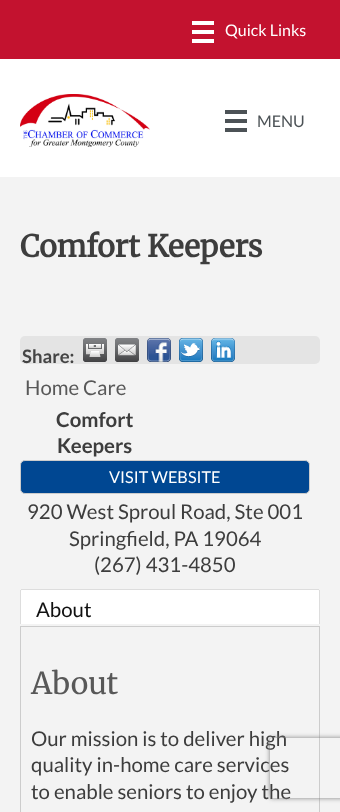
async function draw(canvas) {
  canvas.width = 340;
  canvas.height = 812;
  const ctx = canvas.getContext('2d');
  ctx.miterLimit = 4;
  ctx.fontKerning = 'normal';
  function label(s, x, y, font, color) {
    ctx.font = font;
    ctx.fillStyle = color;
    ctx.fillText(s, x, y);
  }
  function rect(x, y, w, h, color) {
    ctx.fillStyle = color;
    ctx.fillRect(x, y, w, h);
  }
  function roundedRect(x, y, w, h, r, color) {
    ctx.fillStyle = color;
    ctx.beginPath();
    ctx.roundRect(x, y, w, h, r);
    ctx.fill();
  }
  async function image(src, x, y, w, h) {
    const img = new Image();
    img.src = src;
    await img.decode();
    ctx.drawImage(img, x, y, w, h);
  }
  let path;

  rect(0, 0, 340, 812, '#fff');
  rect(0, 0, 340, 59, '#c3122f');
  rect(192, 21, 22, 4, '#fff');
  rect(192, 30, 22, 4, '#fff');
  rect(192, 39, 22, 4, '#fff');
  label('Quick Links', 225, 36, '16px Lato', '#fff');
  await image('assets/img1.png', 20, 94, 130, 53);
  rect(225, 110, 22, 4, '#4c5256');
  rect(225, 119, 22, 4, '#4c5256');
  rect(225, 128, 22, 4, '#4c5256');
  label('MENU', 257, 127, '16px Lato', '#4c5256');
  rect(0, 177, 340, 635, '#f3f3f3');
  label('Comfort Keepers', 20, 257, 'bold 30px Merriweather', '#3d3d3d');
  roundedRect(20, 336, 300, 28, 5, '#e4e4e4');
  label('Share:', 22, 363, 'bold 18.5px Lato', '#444');
  await image('assets/img2.png', 83, 338, 24, 24);
  await image('assets/img3.png', 115, 338, 24, 24);
  await image('assets/img4.png', 147, 338, 24, 24);
  await image('assets/img5.png', 179, 338, 24, 24);
  await image('assets/img6.png', 211, 338, 24, 24);
  label('Home Care', 25, 395, '20.4px Lato', '#585858');
  label('Comfort', 56, 427, 'bold 20.4px Lato', '#3d3d3d');
  label('Keepers', 57, 453, 'bold 20.4px Lato', '#3d3d3d');
  ctx.fillStyle = '#004792';
  ctx.beginPath();
  ctx.roundRect(20.5, 460.5, 289, 33, 4.5);
  ctx.fill();
  ctx.strokeStyle = '#ccc';
  ctx.stroke();
  label('VISIT WEBSITE', 109, 483, '16.25px Lato', '#fff');
  label('920 West Sproul Road, Ste 001', 27, 519, '20.4px Lato', '#3d3d3d');
  label('Springfield, PA 19064', 69, 546, '20.4px Lato', '#3d3d3d');
  label('(267) 431-4850', 94, 572, '20.4px Lato', '#3d3d3d');
  ctx.fillStyle = '#fff';
  ctx.beginPath();
  ctx.roundRect(21, 590, 298, 34, [1, 1, 0, 0]);
  ctx.fill();
  rect(21, 589, 298, 1, '#ddd');
  rect(319, 590, 1, 34, '#ddd');
  rect(20, 590, 1, 34, '#ddd');
  label('About', 36, 617, '20.4px Lato', '#111');
  ctx.strokeRect(20.5, 626.5, 299, 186);
  label('About', 31, 694, '30px Merriweather', '#585858');
  label('Our mission is to deliver high', 31, 746, '20.4px Lato', '#3d3d3d');
  label('quality in-home care services', 31, 772, '20.4px Lato', '#3d3d3d');
  label('to enable seniors to enjoy the', 31, 799, '20.4px Lato', '#3d3d3d');
  ctx.save();
  path = new Path2D('M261 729H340V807H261ZM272 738H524C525 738 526 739 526 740V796C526 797 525 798 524 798H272C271 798 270 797 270 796V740C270 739 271 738 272 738Z');
  ctx.clip(path, 'evenodd');
  ctx.fillStyle = '#808080';
  ctx.filter = 'blur(2.5px)';
  ctx.beginPath();
  ctx.roundRect(270, 738, 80, 60, 2);
  ctx.fill();
  ctx.filter = 'none';
  ctx.restore();
}

draw(document.querySelector('canvas'));
